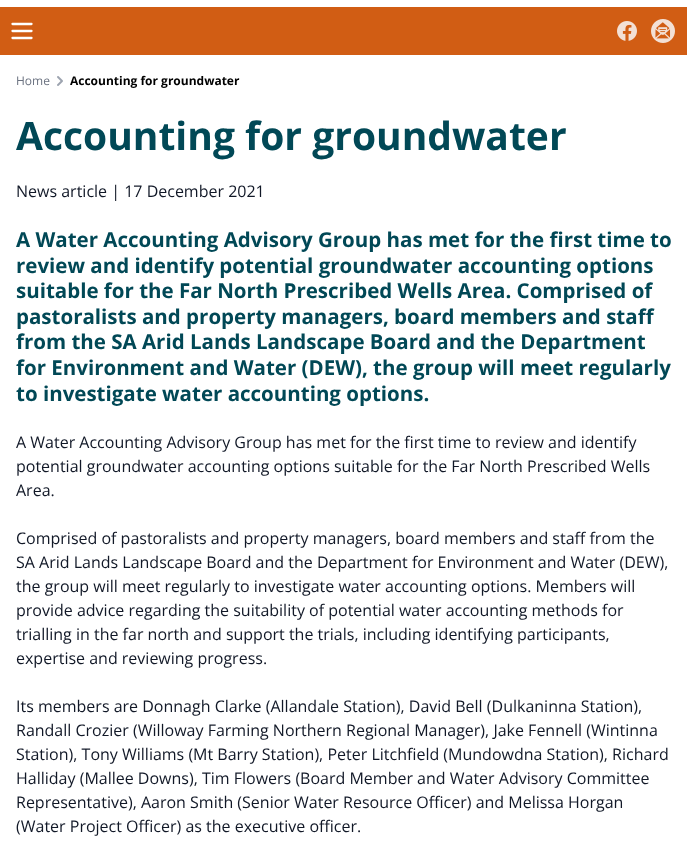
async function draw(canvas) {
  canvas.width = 687;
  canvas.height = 868;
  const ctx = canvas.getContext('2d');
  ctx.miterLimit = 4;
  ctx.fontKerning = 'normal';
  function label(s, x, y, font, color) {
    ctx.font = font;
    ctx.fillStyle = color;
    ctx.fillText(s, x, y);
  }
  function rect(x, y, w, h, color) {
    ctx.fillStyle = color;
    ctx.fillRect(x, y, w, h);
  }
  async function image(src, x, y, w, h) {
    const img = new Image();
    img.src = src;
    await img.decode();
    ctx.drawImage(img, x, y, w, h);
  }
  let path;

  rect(0, 0, 687, 868, '#fff');
  rect(0, 7, 687, 48, '#d15d14');
  path = new Path2D('M12.5 24H31.5M12.5 31H31.5M12.5 38H31.5');
  ctx.strokeStyle = '#fff';
  ctx.lineWidth = 2.3;
  ctx.lineCap = 'round';
  ctx.lineJoin = 'round';
  ctx.stroke(path);
  await image('assets/img1.png', 617, 21, 20, 20);
  await image('assets/img2.png', 651, 19, 24, 24);
  label('Home', 16, 85, '12px Open Sans', '#6b7280');
  await image('assets/img3.png', 57, 76, 6, 10);
  label('Accounting for groundwater', 70, 85, 'bold 12px Open Sans', '#000');
  label('Accounting for groundwater', 16, 150, 'bold 39px Open Sans', '#014856');
  label('News article | 17 December 2021', 16, 197, '16px Open Sans', '#111827');
  label('A Water Accounting Advisory Group has met for the first time to', 16, 247, 'bold 20.5px Open Sans', '#014856');
  label('review and identify potential groundwater accounting options', 16, 273, 'bold 20.5px Open Sans', '#014856');
  label('suitable for the Far North Prescribed Wells Area. Comprised of', 16, 298, 'bold 20.5px Open Sans', '#014856');
  label('pastoralists and property managers, board members and staff', 16, 324, 'bold 20.5px Open Sans', '#014856');
  label('from the SA Arid Lands Landscape Board and the Department', 16, 349, 'bold 20.5px Open Sans', '#014856');
  label('for Environment and Water (DEW), the group will meet regularly', 16, 375, 'bold 20.5px Open Sans', '#014856');
  label('to investigate water accounting options.', 16, 401, 'bold 20.5px Open Sans', '#014856');
  label('A Water Accounting Advisory Group has met for the first time to review and identify', 16, 448, '16px Open Sans', '#111827');
  label('potential groundwater accounting options suitable for the Far North Prescribed Wells', 16, 472, '16px Open Sans', '#111827');
  label('Area.', 16, 496, '16px Open Sans', '#111827');
  label('Comprised of pastoralists and property managers, board members and staff from the', 16, 544, '16px Open Sans', '#111827');
  label('SA Arid Lands Landscape Board and the Department for Environment and Water (DEW),', 16, 568, '16px Open Sans', '#111827');
  label('the group will meet regularly to investigate water accounting options. Members will', 16, 592, '16px Open Sans', '#111827');
  label('provide advice regarding the suitability of potential water accounting methods for', 16, 616, '16px Open Sans', '#111827');
  label('trialling in the far north and support the trials, including identifying participants,', 16, 640, '16px Open Sans', '#111827');
  label('expertise and reviewing progress.', 16, 664, '16px Open Sans', '#111827');
  label('Its members are Donnagh Clarke (Allandale Station), David Bell (Dulkaninna Station),', 16, 712, '16px Open Sans', '#111827');
  label('Randall Crozier (Willoway Farming Northern Regional Manager), Jake Fennell (Wintinna', 16, 736, '16px Open Sans', '#111827');
  label('Station), Tony Williams (Mt Barry Station), Peter Litchfield (Mundowdna Station), Richard', 16, 760, '16px Open Sans', '#111827');
  label('Halliday (Mallee Downs), Tim Flowers (Board Member and Water Advisory Committee', 16, 784, '16px Open Sans', '#111827');
  label('Representative), Aaron Smith (Senior Water Resource Officer) and Melissa Horgan', 16, 808, '16px Open Sans', '#111827');
  label('(Water Project Officer) as the executive officer.', 16, 832, '16px Open Sans', '#111827');
}

draw(document.querySelector('canvas'));
